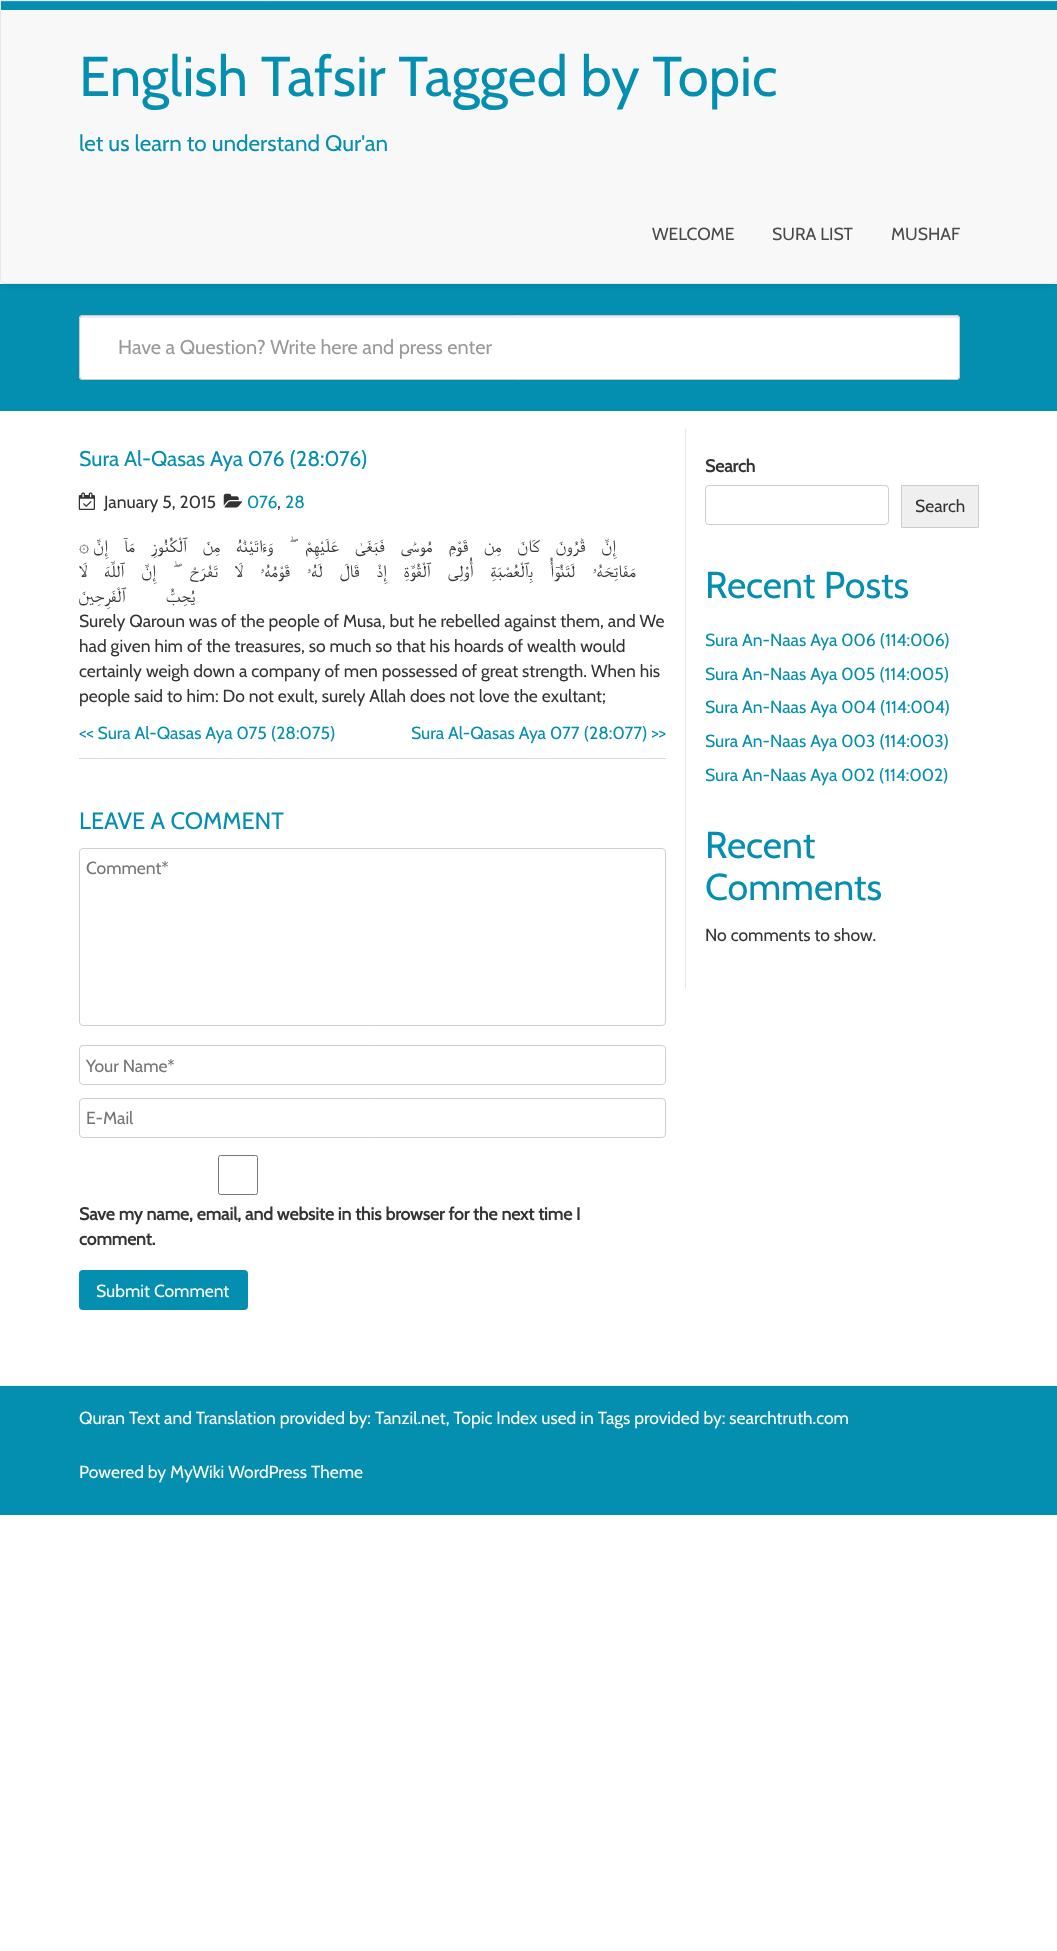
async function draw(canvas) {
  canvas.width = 1057;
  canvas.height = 1951;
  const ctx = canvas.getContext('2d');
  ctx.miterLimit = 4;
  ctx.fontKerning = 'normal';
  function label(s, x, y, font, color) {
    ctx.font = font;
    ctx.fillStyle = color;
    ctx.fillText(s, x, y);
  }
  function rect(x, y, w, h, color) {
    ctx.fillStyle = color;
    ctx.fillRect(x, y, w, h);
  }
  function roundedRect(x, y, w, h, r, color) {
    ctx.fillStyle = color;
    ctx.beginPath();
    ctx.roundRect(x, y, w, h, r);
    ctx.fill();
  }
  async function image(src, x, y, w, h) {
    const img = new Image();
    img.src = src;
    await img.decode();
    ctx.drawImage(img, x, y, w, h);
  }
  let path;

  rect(0, 0, 1057, 1951, '#fff');
  rect(0, 284, 1057, 127, '#048eb0');
  ctx.fillStyle = '#00000012';
  ctx.filter = 'blur(3px)';
  ctx.beginPath();
  ctx.roundRect(0, 1, 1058, 284, 5);
  ctx.fill();
  ctx.filter = 'none';
  ctx.fillStyle = '#f8f8f8';
  path = new Path2D('M0 0H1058V279C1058 282 1056 284 1053 284H5C2 284 0 282 0 279Z');
  ctx.fill(path);
  rect(1, 1, 1056, 9, '#048eb0');
  rect(1, 1, 1055, 1, '#2a9fbc');
  path = new Path2D('M.5 .5H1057.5V279C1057.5 281.5 1055.5 283.5 1053 283.5H5C2.5 283.5 .5 281.5 .5 279Z');
  ctx.strokeStyle = '#e7e7e7';
  ctx.stroke(path);
  label('English Tafsir Tagged by Topic', 79, 96, '56.25px Cabin', '#048eb0');
  label('let us learn to understand Qur\'an', 79, 151, '22.5px Cabin', '#048eb0');
  label('WELCOME', 652, 240, '17.5px Cabin', '#494949');
  label('SURA LIST', 772, 240, '17.5px Cabin', '#494949');
  label('MUSHAF', 891, 240, '17.5px Cabin', '#494949');
  roundedRect(79, 315, 881, 65, 4, '#fff');
  ctx.fillStyle = '#ececec';
  path = new Path2D('M82 318H956C958 318 959 319 959 320V318C959 317 958 316 956 316H82C81 316 80 317 80 318V320C80 319 81 318 82 318Z');
  ctx.fill(path);
  ctx.beginPath();
  ctx.roundRect(79.5, 315.5, 880, 64, 3.5);
  ctx.strokeStyle = '#ccc';
  ctx.stroke();
  label('Have a Question? Write here and press enter', 118, 354, '20px Cabin', '#999');
  label('Sura Al-Qasas Aya 076 (28:076)', 79, 466, '21.25px Cabin', '#048eb0');
  await image('assets/img1.png', 78, 492, 17, 18);
  label('January 5, 2015', 104, 508, '17.5px Cabin', '#333');
  await image('assets/img2.png', 223, 493, 20, 15);
  label('076', 247, 508, '17.5px Cabin', '#048eb0');
  label(',', 277, 508, '17.5px Cabin', '#333');
  label('28', 285, 508, '17.5px Cabin', '#048eb0');
  label('۞', 79, 552, '17.5px Cascadia Code', '#333');
  ctx.wordSpacing = '11.4px';
  ctx.direction = 'rtl';
  label('إِنَّ قَٰرُونَ كَانَ مِن قَوْمِ مُوسَىٰ فَبَغَىٰ عَلَيْهِمْ ۖ وَءَاتَيْنَٰهُ مِنَ ٱلْكُنُوزِ مَآ إِنَّ', 616, 552, '17.5px FreeSerif', '#333');
  ctx.wordSpacing = '12.6px';
  label('مَفَاتِحَهُۥ لَتَنُوٓأُ بِٱلْعُصْبَةِ أُو۟لِى ٱلْقُوَّةِ إِذْ قَالَ لَهُۥ قَوْمُهُۥ لَا تَفْرَحْ ۖ إِنَّ ٱللَّهَ لَا', 636, 577, '17.5px FreeSerif', '#333');
  ctx.wordSpacing = '36px';
  label('يُحِبُّ ٱلْفَرِحِينَ', 195, 602, '17.5px FreeSerif', '#333');
  ctx.wordSpacing = '0px';
  ctx.direction = 'ltr';
  label('Surely Qaroun was of the people of Musa, but he rebelled against them, and We', 79, 627, '17.5px Cabin', '#333');
  label('had given him of the treasures, so much so that his hoards of wealth would', 79, 652, '17.5px Cabin', '#333');
  label('certainly weigh down a company of men possessed of great strength. When his', 79, 677, '17.5px Cabin', '#333');
  label('people said to him: Do not exult, surely Allah does not love the exultant;', 79, 702, '17.5px Cabin', '#333');
  label('<< Sura Al-Qasas Aya 075 (28:075)', 79, 739, '17.5px Cabin', '#048eb0');
  label('Sura Al-Qasas Aya 077 (28:077) >>', 411, 739, '17.5px Cabin', '#048eb0');
  rect(79, 758, 587, 1, '#d9d9d9');
  label('LEAVE A COMMENT', 79, 829, '23.75px Cabin', '#048eb0');
  ctx.beginPath();
  ctx.roundRect(79.5, 848.5, 586, 177, 3.5);
  ctx.strokeStyle = '#cfcfcf';
  ctx.stroke();
  label('Comment*', 86, 874, '17.5px Cabin', '#757575');
  ctx.beginPath();
  ctx.roundRect(79.5, 1045.5, 586, 39, 3.5);
  ctx.stroke();
  label('Your Name*', 86, 1072, '17.5px Cabin', '#757575');
  ctx.beginPath();
  ctx.roundRect(79.5, 1098.5, 586, 39, 3.5);
  ctx.stroke();
  label('E-Mail', 86, 1124, '17.5px Cabin', '#757575');
  ctx.beginPath();
  ctx.roundRect(218.5, 1155.5, 39, 39, 2);
  ctx.strokeStyle = '#767676';
  ctx.stroke();
  label('Save my name, email, and website in this browser for the next time I', 79, 1220, 'bold 17.5px Cabin', '#333');
  label('comment.', 79, 1245, 'bold 17.5px Cabin', '#333');
  roundedRect(79, 1270, 169, 40, 4, '#048eb0');
  label('Submit Comment', 96, 1297, '17.5px Cabin', '#fff');
  rect(685, 429, 1, 560, '#e7e7e7');
  label('Search', 705, 472, 'bold 17.5px Cabin', '#333');
  ctx.beginPath();
  ctx.roundRect(705.5, 485.5, 183, 39, 3.5);
  ctx.strokeStyle = '#cfcfcf';
  ctx.stroke();
  ctx.fillStyle = '#efefef';
  ctx.beginPath();
  ctx.rect(901.5, 485.5, 77, 42);
  ctx.fill();
  ctx.strokeStyle = '#ccc';
  ctx.stroke();
  label('Search', 915, 512, '17.5px Cabin', '#333');
  label('Recent Posts', 705, 598, '37.5px Cabin', '#048eb0');
  label('Sura An-Naas Aya 006 (114:006)', 705, 646, '17.5px Cabin', '#048eb0');
  label('Sura An-Naas Aya 005 (114:005)', 705, 680, '17.5px Cabin', '#048eb0');
  label('Sura An-Naas Aya 004 (114:004)', 705, 713, '17.5px Cabin', '#048eb0');
  label('Sura An-Naas Aya 003 (114:003)', 705, 747, '17.5px Cabin', '#048eb0');
  label('Sura An-Naas Aya 002 (114:002)', 705, 781, '17.5px Cabin', '#048eb0');
  label('Recent', 705, 858, '37.5px Cabin', '#048eb0');
  label('Comments', 705, 900, '37.5px Cabin', '#048eb0');
  label('No comments to show.', 705, 941, '17.5px Cabin', '#333');
  rect(0, 1385, 1057, 1, '#eee');
  rect(0, 1386, 1057, 129, '#048eb0');
  label('Quran Text and Translation provided by: Tanzil.net, Topic Index used in Tags provided by: searchtruth.com', 79, 1424, '17.5px Cabin', '#fff');
  label('Powered by MyWiki WordPress Theme', 79, 1478, '17.5px Cabin', '#fff');
}

draw(document.querySelector('canvas'));
